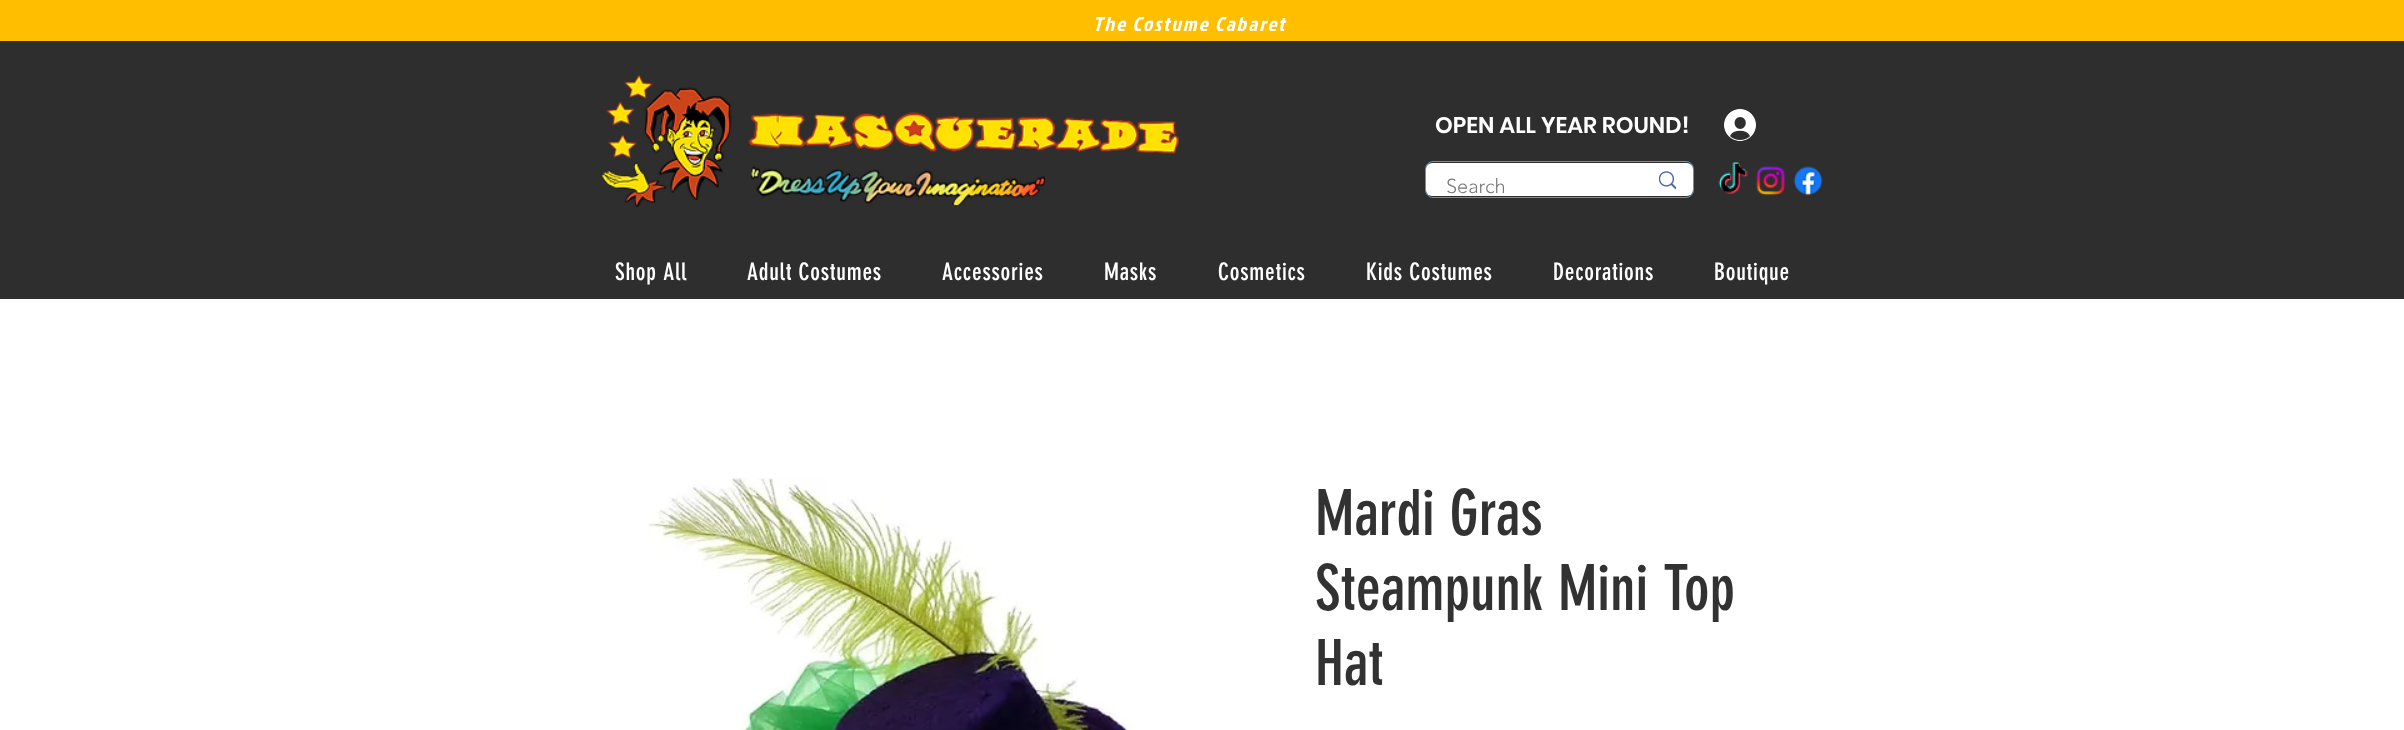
async function draw(canvas) {
  canvas.width = 2404;
  canvas.height = 730;
  const ctx = canvas.getContext('2d');
  ctx.miterLimit = 4;
  ctx.fontKerning = 'normal';
  function label(s, x, y, font, color) {
    ctx.font = font;
    ctx.fillStyle = color;
    ctx.fillText(s, x, y);
  }
  function rect(x, y, w, h, color) {
    ctx.fillStyle = color;
    ctx.fillRect(x, y, w, h);
  }
  function roundedRect(x, y, w, h, r, color) {
    ctx.fillStyle = color;
    ctx.beginPath();
    ctx.roundRect(x, y, w, h, r);
    ctx.fill();
  }
  async function image(src, x, y, w, h) {
    const img = new Image();
    img.src = src;
    await img.decode();
    ctx.drawImage(img, x, y, w, h);
  }

  rect(0, 0, 2404, 730, '#fff');
  rect(0, 0, 2404, 41, '#ffbf00');
  ctx.letterSpacing = '2px';
  label('The Costume Cabaret', 1093, 31, 'italic 20px Jockey One', '#fff');
  rect(0, 41, 2404, 258, '#2f2e2e');
  await image('assets/img1.png', 601, 74, 131, 133);
  await image('assets/img2.png', 748, 112, 431, 42);
  ctx.letterSpacing = '0px';
  label('OPEN ALL YEAR ROUND!', 1435, 133, '600 22.5px Poppins', '#fff');
  await image('assets/img3.png', 1724, 109, 32, 32);
  await image('assets/img4.png', 750, 166, 295, 39);
  ctx.beginPath();
  ctx.roundRect(1425.5, 161.5, 268, 36, 7.5);
  ctx.strokeStyle = '#3d9be9';
  ctx.stroke();
  roundedRect(1426, 163, 267, 33, 6, '#fff');
  label('Search', 1446, 193, '300 20px "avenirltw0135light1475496"', '#787878');
  await image('assets/img5.png', 1659, 171, 17, 18);
  await image('assets/img6.png', 1718, 162, 30, 32);
  await image('assets/img7.png', 1756, 166, 30, 30);
  await image('assets/img8.png', 1793, 166, 30, 30);
  ctx.letterSpacing = '0.75px';
  label('Shop All', 615, 280, '23.75px "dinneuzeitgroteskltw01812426"', '#fff');
  label('Adult Costumes', 747, 280, '23.75px "dinneuzeitgroteskltw01812426"', '#fff');
  label('Accessories', 942, 280, '23.75px "dinneuzeitgroteskltw01812426"', '#fff');
  label('Masks', 1104, 280, '23.75px "dinneuzeitgroteskltw01812426"', '#fff');
  label('Cosmetics', 1218, 280, '23.75px "dinneuzeitgroteskltw01812426"', '#fff');
  label('Kids Costumes', 1366, 280, '23.75px "dinneuzeitgroteskltw01812426"', '#fff');
  label('Decorations', 1553, 280, '23.75px "dinneuzeitgroteskltw01812426"', '#fff');
  label('Boutique', 1714, 280, '23.75px "dinneuzeitgroteskltw01812426"', '#fff');
  await image('assets/img9.png', 648, 478, 485, 252);
  ctx.letterSpacing = '0px';
  label('Mardi Gras', 1315, 535, '62.5px "dinneuzeitgroteskltw01812426"', '#323232');
  label('Steampunk Mini Top', 1315, 610, '62.5px "dinneuzeitgroteskltw01812426"', '#323232');
  label('Hat', 1315, 685, '62.5px "dinneuzeitgroteskltw01812426"', '#323232');
}

draw(document.querySelector('canvas'));
